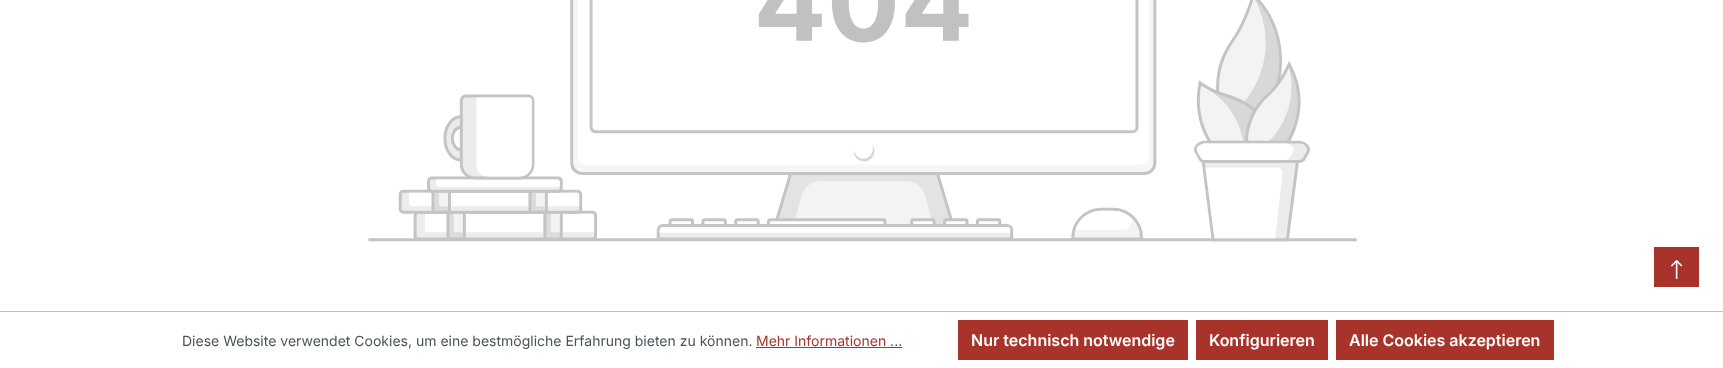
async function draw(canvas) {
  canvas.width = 1723;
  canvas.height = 368;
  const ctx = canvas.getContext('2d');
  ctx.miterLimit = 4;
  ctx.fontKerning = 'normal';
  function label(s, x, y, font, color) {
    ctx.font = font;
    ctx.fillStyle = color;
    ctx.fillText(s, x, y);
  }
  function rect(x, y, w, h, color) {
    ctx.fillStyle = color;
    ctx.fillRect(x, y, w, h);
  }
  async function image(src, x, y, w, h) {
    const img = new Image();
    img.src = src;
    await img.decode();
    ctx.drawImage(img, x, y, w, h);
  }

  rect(0, 0, 1723, 368, '#fff');
  await image('assets/img1.png', 368, 0, 989, 242);
  rect(1654, 247, 45, 40, '#a8332a');
  await image('assets/img2.png', 1671, 260, 12, 19);
  rect(0, 311, 1723, 1, '#bcc1c7');
  label('Diese Website verwendet Cookies, um eine bestmögliche Erfahrung bieten zu können.', 182, 346, '14px Inter', '#4a545b');
  label('Mehr Informationen ...', 756, 346, '14px Inter', '#a8332a');
  rect(756, 347, 146, 1, '#a8332a');
  rect(958, 320, 230, 40, '#a8332a');
  label('Nur technisch notwendige', 971, 346, '600 16px Inter', '#fff');
  rect(1196, 320, 132, 40, '#a8332a');
  label('Konfigurieren', 1209, 346, '600 16px Inter', '#fff');
  rect(1336, 320, 218, 40, '#a8332a');
  label('Alle Cookies akzeptieren', 1349, 346, '600 16px Inter', '#fff');
}

draw(document.querySelector('canvas'));
